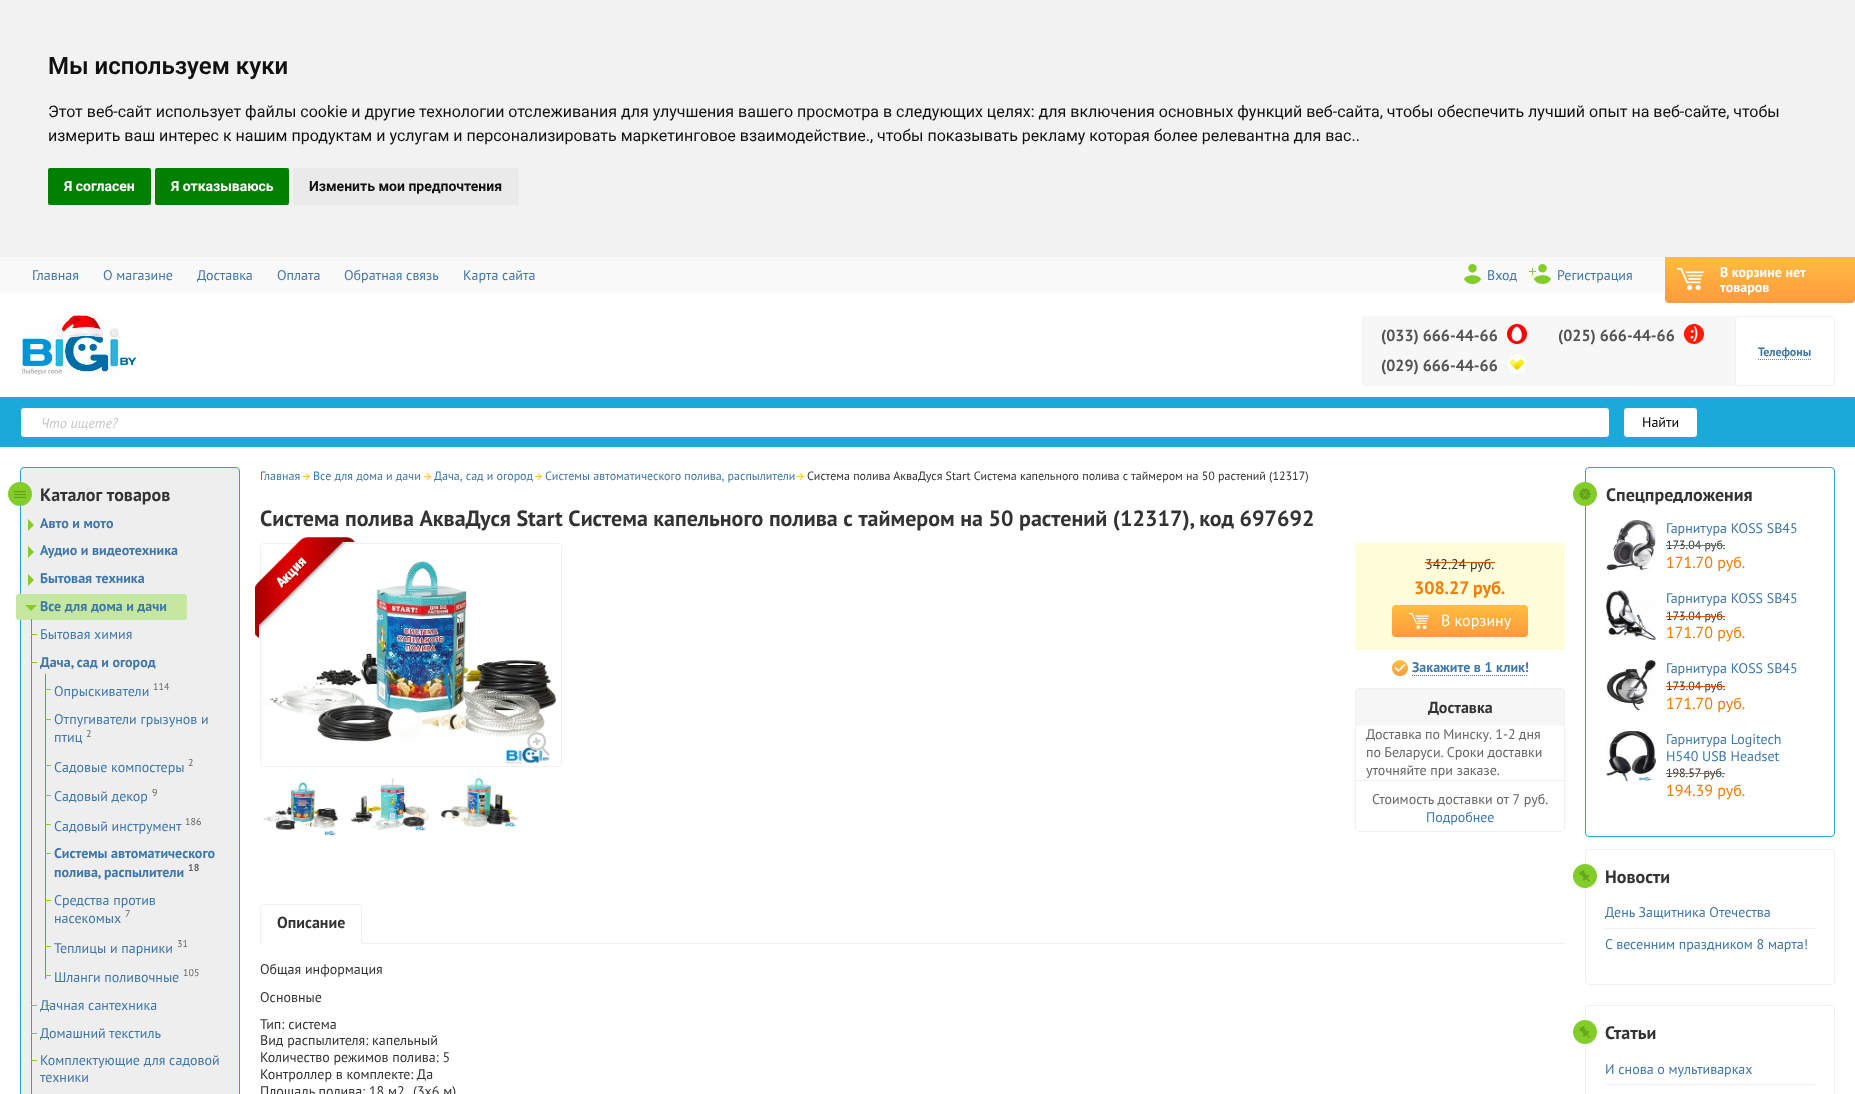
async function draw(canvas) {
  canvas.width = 1855;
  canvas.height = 1094;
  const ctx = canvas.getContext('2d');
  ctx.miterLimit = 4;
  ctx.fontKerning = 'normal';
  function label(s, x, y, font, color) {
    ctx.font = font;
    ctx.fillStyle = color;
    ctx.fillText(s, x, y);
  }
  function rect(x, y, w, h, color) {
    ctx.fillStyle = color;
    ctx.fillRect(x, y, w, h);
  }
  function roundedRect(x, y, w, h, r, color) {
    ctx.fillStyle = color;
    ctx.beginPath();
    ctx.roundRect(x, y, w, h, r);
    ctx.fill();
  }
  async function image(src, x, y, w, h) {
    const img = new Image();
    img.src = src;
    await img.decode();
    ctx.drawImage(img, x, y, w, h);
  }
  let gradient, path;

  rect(0, 0, 1855, 1094, '#fff');
  rect(0, 0, 1855, 257, '#f2f2f2');
  label('Мы используем куки', 48, 74, '600 24px Roboto', '#111');
  label('Этот веб-сайт использует файлы cookie и другие технологии отслеживания для улучшения вашего просмотра в следующих целях: для включения основных функций веб-сайта, чтобы обеспечить лучший опыт на веб-сайте, чтобы', 48, 117, '16px Roboto', '#111');
  label('измерить ваш интерес к нашим продуктам и услугам и персонализировать маркетинговое взаимодействие., чтобы показывать рекламу которая более релевантна для вас..', 48, 141, '16px Roboto', '#111');
  roundedRect(48, 168, 103, 37, 2, '#008000');
  label('Я согласен', 64, 191, 'bold 14px Roboto', '#fff');
  roundedRect(155, 168, 134, 37, 2, '#008000');
  label('Я отказываюсь', 171, 191, 'bold 14px Roboto', '#fff');
  roundedRect(293, 168, 226, 37, 2, '#eaeaea');
  label('Изменить мои предпочтения', 309, 191, 'bold 14px Roboto', '#111');
  rect(0, 257, 1665, 36, '#f9f9f9');
  label('Главная', 32, 280, '14px PT Sans', '#3e77aa');
  label('О магазине', 103, 280, '14px PT Sans', '#3e77aa');
  label('Доставка', 197, 280, '14px PT Sans', '#3e77aa');
  label('Оплата', 277, 280, '14px PT Sans', '#3e77aa');
  label('Обратная связь', 344, 280, '14px PT Sans', '#3e77aa');
  label('Карта сайта', 463, 280, '14px PT Sans', '#3e77aa');
  await image('assets/img1.png', 1464, 264, 17, 20);
  label('Вход', 1487, 280, '14px PT Sans', '#3e77aa');
  await image('assets/img2.png', 1529, 264, 22, 20);
  label('Региcтрация', 1557, 280, '14px PT Sans', '#3e77aa');
  gradient = ctx.createLinearGradient(1760, 257, 1760, 303);
  gradient.addColorStop(0, '#ffbd3f');
  gradient.addColorStop(1, '#ff9a3f');
  ctx.fillStyle = gradient;
  ctx.beginPath();
  ctx.roundRect(1665, 257, 190, 46, [0, 0, 4, 4]);
  ctx.fill();
  await image('assets/img3.png', 1677, 268, 27, 22);
  label('В корзине нет', 1720, 277, 'bold 14px PT Sans', '#fff');
  label('товаров', 1720, 292, 'bold 14px PT Sans', '#fff');
  await image('assets/img4.png', 22, 315, 115, 60);
  roundedRect(1361, 316, 384, 70, 4, '#f7f7f7');
  label('(033) 666-44-66', 1381, 341, 'bold 16px PT Sans', '#545454');
  await image('assets/img5.png', 1507, 324, 20, 20);
  label('(025) 666-44-66', 1558, 341, 'bold 16px PT Sans', '#545454');
  await image('assets/img6.png', 1684, 324, 20, 20);
  label('(029) 666-44-66', 1381, 371, 'bold 16px PT Sans', '#545454');
  await image('assets/img7.png', 1506, 353, 22, 22);
  ctx.fillStyle = '#fff';
  ctx.beginPath();
  ctx.roundRect(1735.5, 316.5, 99, 69, 3.5);
  ctx.fill();
  ctx.strokeStyle = '#f0f0f0';
  ctx.stroke();
  label('Телефоны', 1758, 356, 'bold 12px PT Sans', '#3e77aa');
  path = new Path2D('M1758 359.5H1812');
  ctx.strokeStyle = '#628db6';
  ctx.setLineDash([1, 1]);
  ctx.stroke(path);
  rect(0, 397, 1855, 50, '#1aa9d9');
  ctx.fillStyle = '#fff';
  ctx.beginPath();
  ctx.roundRect(20.5, 407.5, 1589, 30, 3.5);
  ctx.fill();
  ctx.strokeStyle = '#1aa9d9';
  ctx.setLineDash([]);
  ctx.stroke();
  label('Что ищете?', 41, 428, 'italic 14px PT Sans', '#c6c6c6');
  ctx.fillStyle = '#fff';
  ctx.beginPath();
  ctx.roundRect(1623.5, 407.5, 74, 30, 3.5);
  ctx.fill();
  ctx.stroke();
  label('Найти', 1642, 427, '14px PT Sans', '#000');
  ctx.fillStyle = '#eee';
  ctx.beginPath();
  ctx.roundRect(20.5, 467.5, 219, 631, 3.5);
  ctx.fill();
  ctx.stroke();
  await image('assets/img8.png', 8, 482, 24, 24);
  label('Каталог товаров', 40, 501, 'bold 18px PT Sans', '#333');
  await image('assets/img9.png', 28, 519, 6, 12);
  label('Авто и мото', 40, 528, 'bold 14px PT Sans', '#3e77aa');
  await image('assets/img9.png', 28, 546, 6, 12);
  label('Аудио и видеотехника', 40, 555, 'bold 14px PT Sans', '#3e77aa');
  await image('assets/img9.png', 28, 574, 6, 12);
  label('Бытовая техника', 40, 583, 'bold 14px PT Sans', '#3e77aa');
  roundedRect(16, 594, 171, 26, 3, '#c6e79f');
  await image('assets/img10.png', 25, 605, 12, 6);
  label('Все для дома и дачи', 40, 611, 'bold 14px PT Sans', '#3e77aa');
  rect(31, 619, 1, 475, '#1aa9d9');
  rect(31, 634, 6, 1, '#83cd2b');
  label('Бытовая химия', 40, 639, '14px PT Sans', '#3e77aa');
  rect(31, 662, 6, 1, '#83cd2b');
  label('Дача, сад и огород', 40, 667, 'bold 14px PT Sans', '#3e77aa');
  rect(45, 674, 1, 305, '#1aa9d9');
  rect(45, 689, 6, 1, '#83cd2b');
  label('Опрыскиватели', 54, 696, '14px PT Sans', '#3e77aa');
  label('114', 153, 690, '10px PT Sans', '#666');
  rect(45, 719, 6, 1, '#83cd2b');
  label('Отпугиватели грызунов и', 54, 724, '14px PT Sans', '#3e77aa');
  label('2', 86, 737, '10px PT Sans', '#666');
  label('птиц', 54, 742, '14px PT Sans', '#3e77aa');
  rect(45, 765, 6, 1, '#83cd2b');
  label('Садовые компостеры', 54, 772, '14px PT Sans', '#3e77aa');
  label('2', 188, 766, '10px PT Sans', '#666');
  rect(45, 795, 6, 1, '#83cd2b');
  label('Садовый декор', 54, 801, '14px PT Sans', '#3e77aa');
  label('9', 152, 796, '10px PT Sans', '#666');
  rect(45, 824, 6, 1, '#83cd2b');
  label('Садовый инструмент', 54, 831, '14px PT Sans', '#3e77aa');
  label('186', 185, 825, '10px PT Sans', '#666');
  rect(45, 853, 6, 1, '#83cd2b');
  label('Системы автоматического', 54, 858, 'bold 14px PT Sans', '#3e77aa');
  label('18', 188, 871, 'bold 10px PT Sans', '#666');
  label('полива, распылители', 54, 877, 'bold 14px PT Sans', '#3e77aa');
  rect(45, 900, 6, 1, '#83cd2b');
  label('Средства против', 54, 905, '14px PT Sans', '#3e77aa');
  label('7', 125, 917, '10px PT Sans', '#666');
  label('насекомых', 54, 923, '14px PT Sans', '#3e77aa');
  rect(45, 946, 6, 1, '#83cd2b');
  label('Теплицы и парники', 54, 953, '14px PT Sans', '#3e77aa');
  label('31', 177, 947, '10px PT Sans', '#666');
  rect(45, 975, 6, 1, '#83cd2b');
  label('Шланги поливочные', 54, 982, '14px PT Sans', '#3e77aa');
  label('105', 183, 976, '10px PT Sans', '#666');
  rect(45, 1005, 6, 1, '#83cd2b');
  rect(31, 1005, 6, 1, '#83cd2b');
  label('Дачная сантехника', 40, 1010, '14px PT Sans', '#3e77aa');
  rect(31, 1033, 6, 1, '#83cd2b');
  label('Домашний текстиль', 40, 1038, '14px PT Sans', '#3e77aa');
  rect(31, 1060, 6, 1, '#83cd2b');
  label('Комплектующие для садовой', 40, 1065, '14px PT Sans', '#3e77aa');
  label('техники', 40, 1082, '14px PT Sans', '#3e77aa');
  label('Главная', 260, 480, '12px PT Sans', '#3e77aa');
  await image('assets/img11.png', 302, 473, 8, 7);
  label('Все для дома и дачи', 313, 480, '12px PT Sans', '#3e77aa');
  await image('assets/img11.png', 423, 473, 8, 7);
  label('Дача, сад и огород', 434, 480, '12px PT Sans', '#3e77aa');
  await image('assets/img11.png', 534, 473, 8, 7);
  label('Системы автоматического полива, распылители', 545, 480, '12px PT Sans', '#3e77aa');
  await image('assets/img11.png', 796, 473, 8, 7);
  label('Система полива АкваДуся Start Система капельного полива с таймером на 50 растений (12317)', 807, 480, '12px PT Sans', '#333');
  label('Система полива АкваДуся Start Система капельного полива с таймером на 50 растений (12317), код 697692', 260, 526, 'bold 22px PT Sans', '#333');
  ctx.beginPath();
  ctx.roundRect(260.5, 543.5, 301, 223, 3.5);
  ctx.strokeStyle = '#f0f0f0';
  ctx.stroke();
  await image('assets/img13.png', 261, 544, 300, 222);
  await image('assets/img12.png', 255, 537, 100, 101);
  await image('assets/img14.png', 527, 732, 23, 24);
  await image('assets/img15.png', 263, 782, 76, 54);
  await image('assets/img16.png', 351, 778, 78, 53);
  await image('assets/img17.png', 441, 778, 78, 49);
  roundedRect(1355, 543, 210, 107, 4, '#fffcd9');
  label('342.24 руб.', 1425, 569, '14px PT Sans', '#333');
  rect(1425, 562, 70, 1, '#e65100');
  label('308.27 руб.', 1414, 594, 'bold 18px PT Sans', '#f57c00');
  gradient = ctx.createLinearGradient(1460, 605, 1460, 637);
  gradient.addColorStop(0, '#ffbd3f');
  gradient.addColorStop(1, '#ff9a3f');
  ctx.fillStyle = gradient;
  ctx.beginPath();
  ctx.roundRect(1392, 605, 136, 32, 4);
  ctx.fill();
  await image('assets/img18.png', 1409, 613, 20, 16);
  label('В корзину', 1441, 626, '16px PT Sans', '#fff');
  await image('assets/img19.png', 1392, 660, 16, 16);
  label('Закажите в 1 клик!', 1412, 672, 'bold 14px PT Sans', '#3e77aa');
  path = new Path2D('M1412 675.5H1528');
  ctx.strokeStyle = '#3e77aa';
  ctx.setLineDash([1, 1]);
  ctx.stroke(path);
  ctx.fillStyle = '#f6f6f6';
  ctx.beginPath();
  ctx.roundRect(1355.5, 688.5, 209, 143, 3.5);
  ctx.fill();
  ctx.strokeStyle = '#f0f0f0';
  ctx.setLineDash([]);
  ctx.stroke();
  label('Доставка', 1428, 713, 'bold 16px PT Sans', '#333');
  rect(1356, 725, 208, 55, '#fff');
  rect(1356, 780, 208, 1, '#f0f0f0');
  ctx.wordSpacing = '-0.5px';
  label('Доставка по Минску. 1-2 дня', 1366, 739, '14px PT Sans', '#666');
  label('по Беларуси. Сроки доставки', 1366, 757, '14px PT Sans', '#666');
  ctx.wordSpacing = '0px';
  label('уточняйте при заказе.', 1366, 775, '14px PT Sans', '#666');
  rect(1356, 781, 208, 50, '#fff');
  label('Стоимость доставки от 7 руб.', 1372, 804, '14px PT Sans', '#666');
  label('Подробнее', 1426, 822, '14px PT Sans', '#3e77aa');
  rect(362, 943, 1203, 1, '#f0f0f0');
  path = new Path2D('M264 904L261 905L262 906L264 905H358L360 906L361 905L358 904Z');
  ctx.fill(path);
  path = new Path2D('M362 944V908C362 907 361.5 906 361 905L360 906C361 906 361 907 361 908V943Z');
  ctx.fill(path);
  ctx.fillStyle = '#fff';
  path = new Path2D('M362 944L361 943H261L260 944Z');
  ctx.fill(path);
  ctx.fillStyle = '#f0f0f0';
  path = new Path2D('M260 944L261 943V908C261 907 261 906 262 906L261 905C260.5 906 260 907 260 908Z');
  ctx.fill(path);
  label('Описание', 277, 928, 'bold 16px PT Sans', '#333');
  label('Общая информация', 260, 974, '14px PT Sans', '#333');
  label('Основные', 260, 1002, '14px PT Sans', '#333');
  label('Тип: система', 260, 1029, '14px PT Sans', '#333');
  label('Вид распылителя: капельный', 260, 1045, '14px PT Sans', '#333');
  label('Количество режимов полива: 5', 260, 1062, '14px PT Sans', '#333');
  label('Контроллер в комплекте: Да', 260, 1079, '14px PT Sans', '#333');
  label('Площадь полива: 18 м2', 260, 1096, '14px PT Sans', '#333');
  label('(3x6 м)', 413, 1096, '14px PT Sans', '#333');
  ctx.beginPath();
  ctx.roundRect(1585.5, 467.5, 249, 369, 3.5);
  ctx.strokeStyle = '#1aa9d9';
  ctx.stroke();
  await image('assets/img20.png', 1573, 482, 24, 24);
  label('Спецпредложения', 1606, 501, 'bold 18px PT Sans', '#333');
  await image('assets/img21.png', 1606, 520, 50, 50);
  label('Гарнитура KOSS SB45', 1666, 533, '14px PT Sans', '#3e77aa');
  label('173.04 руб.', 1666, 549, '12px PT Sans', '#333');
  rect(1666, 545, 59, 1, '#e65100');
  label('171.70 руб.', 1666, 568, '16px PT Sans', '#f57c00');
  await image('assets/img22.png', 1606, 590, 50, 50);
  label('Гарнитура KOSS SB45', 1666, 603, '14px PT Sans', '#3e77aa');
  label('173.04 руб.', 1666, 620, '12px PT Sans', '#333');
  rect(1666, 616, 59, 1, '#e65100');
  label('171.70 руб.', 1666, 638, '16px PT Sans', '#f57c00');
  await image('assets/img23.png', 1606, 660, 50, 50);
  label('Гарнитура KOSS SB45', 1666, 673, '14px PT Sans', '#3e77aa');
  label('173.04 руб.', 1666, 690, '12px PT Sans', '#333');
  rect(1666, 686, 59, 1, '#e65100');
  label('171.70 руб.', 1666, 709, '16px PT Sans', '#f57c00');
  await image('assets/img24.png', 1606, 731, 50, 50);
  label('Гарнитура Logitech', 1666, 744, '14px PT Sans', '#3e77aa');
  label('H540 USB Headset', 1666, 761, '14px PT Sans', '#3e77aa');
  ctx.wordSpacing = '-1px';
  label('198.57 руб.', 1666, 777, '12px PT Sans', '#333');
  rect(1666, 773, 59, 1, '#e65100');
  ctx.wordSpacing = '0px';
  label('194.39 руб.', 1666, 796, '16px PT Sans', '#f57c00');
  ctx.beginPath();
  ctx.roundRect(1585.5, 849.5, 249, 135, 3.5);
  ctx.strokeStyle = '#f0f0f0';
  ctx.stroke();
  await image('assets/img25.png', 1573, 864, 24, 24);
  label('Новости', 1605, 883, 'bold 18px PT Sans', '#333');
  rect(1605, 928, 210, 1, '#f0f0f0');
  label('День Защитника Отечества', 1605, 917, '14px PT Sans', '#3e77aa');
  label('С весенним праздником 8 марта!', 1605, 949, '14px PT Sans', '#3e77aa');
  ctx.beginPath();
  ctx.roundRect(1585.5, 1005.5, 249, 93, 3.5);
  ctx.stroke();
  await image('assets/img25.png', 1573, 1020, 24, 24);
  label('Статьи', 1605, 1039, 'bold 18px PT Sans', '#333');
  rect(1605, 1084, 210, 1, '#f0f0f0');
  label('И снова о мультиварках', 1605, 1074, '14px PT Sans', '#3e77aa');
}

draw(document.querySelector('canvas'));
